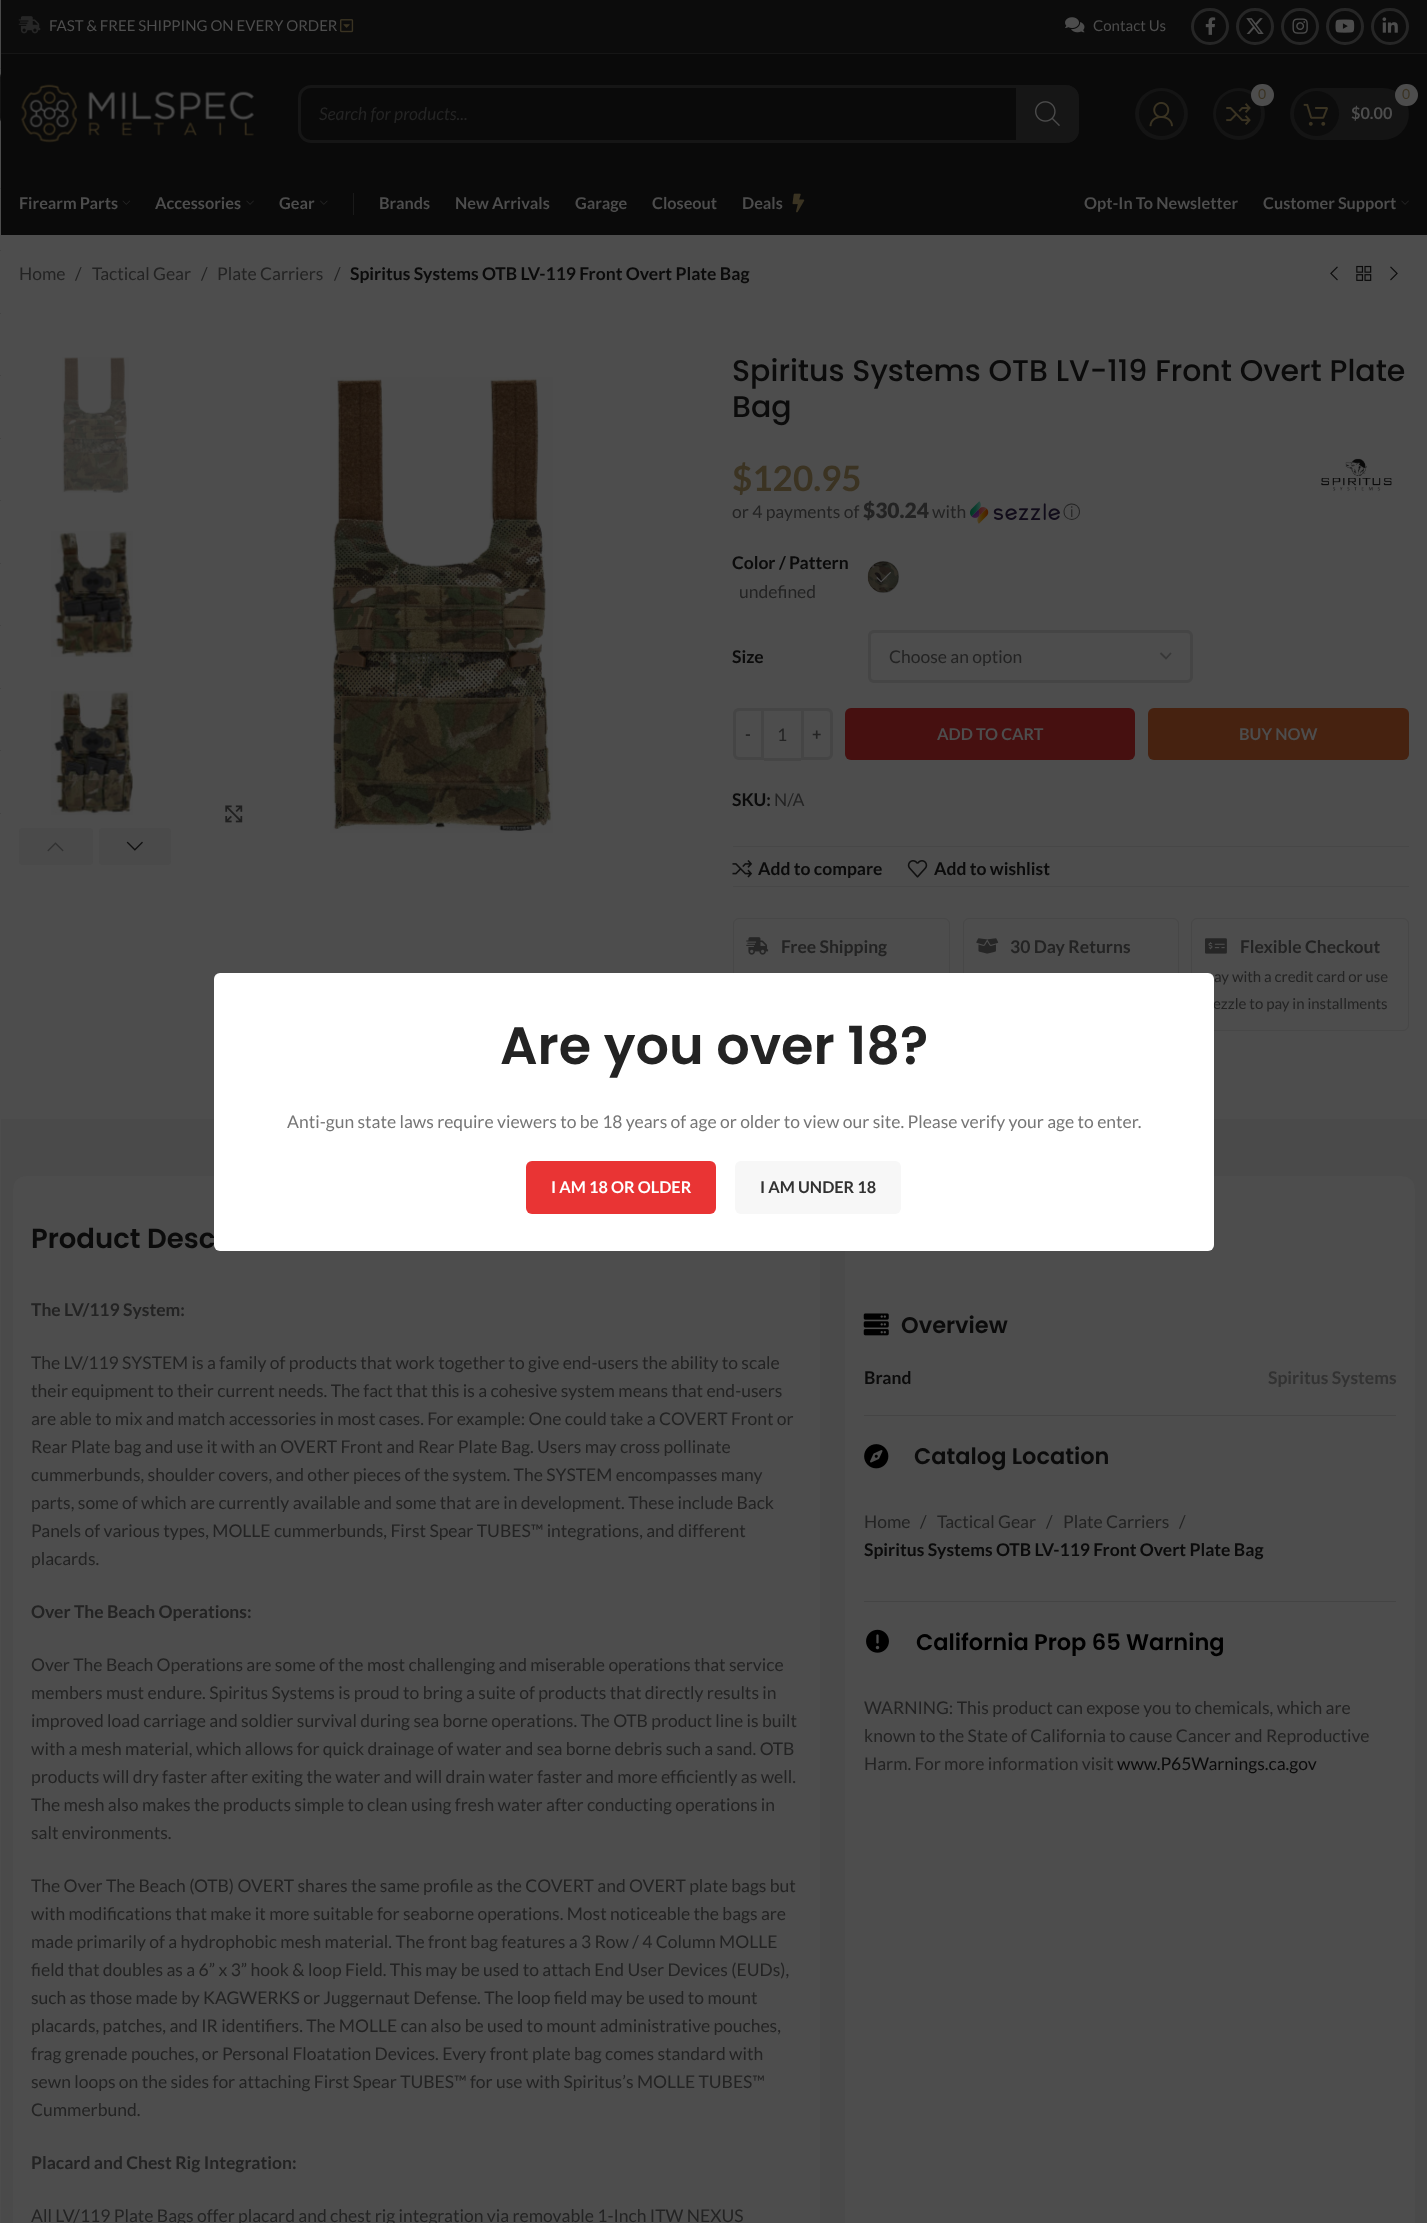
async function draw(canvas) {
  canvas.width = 1427;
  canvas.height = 2223;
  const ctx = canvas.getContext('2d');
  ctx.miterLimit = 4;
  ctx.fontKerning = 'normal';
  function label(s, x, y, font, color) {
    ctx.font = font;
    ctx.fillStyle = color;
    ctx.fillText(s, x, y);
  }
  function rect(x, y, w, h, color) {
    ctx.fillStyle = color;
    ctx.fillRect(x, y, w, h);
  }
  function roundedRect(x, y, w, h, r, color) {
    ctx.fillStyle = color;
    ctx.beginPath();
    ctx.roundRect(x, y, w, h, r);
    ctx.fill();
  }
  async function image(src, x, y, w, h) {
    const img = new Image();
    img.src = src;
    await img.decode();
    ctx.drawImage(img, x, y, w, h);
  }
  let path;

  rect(0, 0, 1427, 2223, '#4d4d4d');
  rect(0, 68, 1, 1, '#444');
  rect(0, 53, 1427, 1, '#161616');
  rect(0, 0, 1, 68, '#4a4a4a');
  ctx.beginPath();
  ctx.roundRect(-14.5, 70.5, 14, 54, 11.5);
  ctx.strokeStyle = '#161616';
  ctx.lineWidth = 3;
  ctx.stroke();
  ctx.fillStyle = '#161616';
  path = new Path2D('M-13 69H-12C-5 69 1 75 1 82V113C1 120-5 126-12 126H-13Z');
  ctx.fill(path);
  rect(0, 188, 1, 1, '#444');
  rect(0, 250, 1, 1, '#444');
  rect(0, 313, 1, 1, '#444');
  rect(0, 375, 1, 1, '#444');
  rect(0, 438, 1, 1, '#444');
  path = new Path2D('M1 501H-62L-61 500H1Z');
  ctx.fill(path);
  rect(0, 563, 1, 1, '#444');
  rect(0, 625, 1, 1, '#444');
  rect(0, 688, 1, 1, '#444');
  rect(0, 750, 1, 1, '#444');
  rect(0, 813, 1, 1, '#444');
  rect(1, 0, 1426, 53, '#0c0c0c');
  await image('assets/img1.png', 18, 16, 23, 18);
  label('FAST & FREE SHIPPING ON EVERY ORDER', 49, 31, '15px Lato', '#4d4d4d');
  await image('assets/img2.png', 340, 19, 14, 14);
  await image('assets/img3.png', 1065, 17, 20, 16);
  label('Contact Us', 1093, 31, '15px Lato', '#4d4d4d');
  ctx.beginPath();
  ctx.roundRect(1192.5, 9.5, 35, 34, 17);
  ctx.strokeStyle = '#262626';
  ctx.stroke();
  await image('assets/img4.png', 1205, 17, 11, 18);
  ctx.beginPath();
  ctx.roundRect(1237.5, 9.5, 35, 34, 17);
  ctx.stroke();
  await image('assets/img5.png', 1246, 18, 18, 16);
  ctx.beginPath();
  ctx.roundRect(1282.5, 9.5, 35, 34, 17);
  ctx.stroke();
  await image('assets/img6.png', 1292, 18, 16, 16);
  ctx.beginPath();
  ctx.roundRect(1327.5, 9.5, 35, 34, 17);
  ctx.stroke();
  await image('assets/img7.png', 1335, 19, 20, 14);
  ctx.beginPath();
  ctx.roundRect(1372.5, 9.5, 35, 34, 17);
  ctx.stroke();
  await image('assets/img8.png', 1382, 17, 16, 16);
  rect(1, 54, 1426, 181, '#0a0a0a');
  await image('assets/img9.png', 20, 84, 234, 59);
  ctx.beginPath();
  ctx.roundRect(299.5, 86.5, 778, 55, 11.5);
  ctx.strokeStyle = '#161616';
  ctx.stroke();
  label('Search for products...', 319, 120, 'italic 17.5px Lato', '#232323');
  ctx.fillStyle = '#161616';
  ctx.beginPath();
  ctx.roundRect(1016, 85, 63, 58, [0, 13, 13, 0]);
  ctx.fill();
  await image('assets/img10.png', 1035, 101, 25, 25);
  roundedRect(1135, 88, 53, 52, 26, '#141414');
  ctx.fillStyle = '#0c0c0c';
  ctx.beginPath();
  ctx.arc(1161.5, 113.5, 22.5, 0, 2 * Math.PI);
  ctx.fill();
  await image('assets/img11.png', 1149, 102, 24, 25);
  ctx.fillStyle = '#141414';
  ctx.beginPath();
  ctx.arc(1239, 114, 26, 0, 2 * Math.PI);
  ctx.fill();
  ctx.fillStyle = '#0c0c0c';
  ctx.beginPath();
  ctx.arc(1238.5, 113.5, 22.5, 0, 2 * Math.PI);
  ctx.fill();
  roundedRect(1251, 84, 23, 22, 11, '#4d4d4d');
  label('0', 1258, 99, '14px Lato', '#3b3322');
  await image('assets/img12.png', 1226, 103, 25, 22);
  roundedRect(1290, 88, 119, 52, 26, '#141414');
  ctx.fillStyle = '#0c0c0c';
  ctx.beginPath();
  ctx.arc(1316.5, 113.5, 22.5, 0, 2 * Math.PI);
  ctx.fill();
  roundedRect(1395, 84, 23, 22, 11, '#4d4d4d');
  label('0', 1402, 99, '14px Lato', '#3b3322');
  await image('assets/img13.png', 1303, 103, 25, 23);
  label('$0.00', 1351, 119, 'bold 16.25px Lato', '#4d4d4d');
  label('Firearm Parts', 19, 209, 'bold 16.25px Lato', '#4d4d4d');
  await image('assets/img14.png', 122, 200, 8, 5);
  label('Accessories', 155, 209, 'bold 16.25px Lato', '#4d4d4d');
  await image('assets/img15.png', 246, 200, 8, 5);
  label('Gear', 279, 209, 'bold 16.25px Lato', '#4d4d4d');
  await image('assets/img16.png', 320, 200, 8, 5);
  rect(353, 193, 1, 22, '#1a1a1a');
  label('Brands', 379, 209, 'bold 16.25px Lato', '#4d4d4d');
  label('New Arrivals', 455, 209, 'bold 16.25px Lato', '#4d4d4d');
  label('Garage', 575, 209, 'bold 16.25px Lato', '#4d4d4d');
  label('Closeout', 652, 209, 'bold 16.25px Lato', '#4d4d4d');
  label('Deals', 742, 209, 'bold 16.25px Lato', '#4d4d4d');
  await image('assets/img17.png', 792, 193, 13, 20);
  label('Opt-In To Newsletter', 1084, 209, 'bold 16.25px Lato', '#4d4d4d');
  label('Customer Support', 1263, 209, 'bold 16.25px Lato', '#4d4d4d');
  await image('assets/img15.png', 1401, 200, 8, 5);
  label('Home', 19, 280, '17.5px Lato', '#232323');
  label('/', 75, 280, '17.5px Lato', '#232323');
  label('Tactical Gear', 92, 280, '17.5px Lato', '#232323');
  label('/', 201, 280, '17.5px Lato', '#232323');
  label('Plate Carriers', 217, 280, '17.5px Lato', '#232323');
  label('/', 334, 280, '17.5px Lato', '#232323');
  label('Spiritus Systems OTB LV-119 Front Overt Plate Bag', 350, 280, 'bold 17.5px Lato', '#0b0b0b');
  await image('assets/img18.png', 1330, 266, 8, 15);
  await image('assets/img19.png', 1356, 265, 16, 16);
  await image('assets/img20.png', 1390, 266, 8, 15);
  await image('assets/img21.png', 62, 357, 67, 136);
  await image('assets/img22.png', 51, 531, 82, 126);
  await image('assets/img23.png', 51, 691, 82, 124);
  roundedRect(19, 828, 74, 37, 4, '#4a4a4a');
  await image('assets/img24.png', 47, 842, 17, 10);
  roundedRect(99, 828, 72, 37, 4, '#4a4a4a');
  await image('assets/img25.png', 126, 841, 17, 10);
  await image('assets/img26.png', 225, 805, 18, 18);
  await image('assets/img27.png', 330, 377, 223, 456);
  label('Spiritus Systems OTB LV-119 Front Overt Plate', 732, 381, '500 30px Poppins', '#0b0b0b');
  label('Bag', 732, 417, '500 30px Poppins', '#0b0b0b');
  label('$120.95', 732, 491, 'bold 35px Lato', '#3b3322');
  label('or 4 payments of', 732, 518, '17.5px Lato', '#232323');
  label('$30.24', 863, 518, '900 21px Lato', '#232323');
  label('with', 932, 518, '17.5px Lato', '#232323');
  await image('assets/img28.png', 970, 501, 90, 23);
  label('ⓘ', 1063, 518, '500 17.5px WenQuanYi Zen Hei', '#232323');
  await image('assets/img29.png', 1321, 458, 71, 33);
  label('Color / Pattern', 732, 569, 'bold 17.5px Lato', '#0b0b0b');
  label('undefined', 739, 598, '17.5px Lato', '#232323');
  await image('assets/img30.png', 867, 561, 32, 32);
  ctx.beginPath();
  ctx.roundRect(868.5, 561.5, 30, 31, 15);
  ctx.strokeStyle = '#00000012';
  ctx.lineWidth = 1;
  ctx.stroke();
  roundedRect(868, 561, 31, 32, 15.5, '#00000033');
  await image('assets/img31.png', 876, 571, 15, 12);
  label('Size', 732, 663, 'bold 17.5px Lato', '#0b0b0b');
  path = new Path2D('M1160.5 653L1166 658.5L1171 653');
  ctx.strokeStyle = '#383838';
  ctx.lineWidth = 1.8;
  ctx.stroke(path);
  ctx.beginPath();
  ctx.roundRect(869.5, 631.5, 322, 50, 4.5);
  ctx.strokeStyle = '#454545';
  ctx.lineWidth = 3;
  ctx.stroke();
  label('Choose an option', 889, 663, '17.5px Lato', '#232323');
  ctx.beginPath();
  ctx.roundRect(734.5, 709.5, 28, 49, [4.5, 0, 0, 4.5]);
  ctx.stroke();
  label('-', 745, 740, 'bold 16.25px Lato', '#232323');
  rect(764, 708, 37, 3, '#454545');
  rect(764, 758, 37, 3, '#454545');
  label('1', 777, 741, '17.5px Lato', '#232323');
  ctx.beginPath();
  ctx.roundRect(802.5, 709.5, 29, 49, [0, 4.5, 4.5, 0]);
  ctx.stroke();
  label('+', 812, 740, 'bold 16.25px Lato', '#232323');
  roundedRect(845, 708, 290, 52, 6, '#461010');
  label('ADD TO CART', 937, 740, 'bold 16.25px Lato', '#4d4d4d');
  roundedRect(1148, 708, 261, 52, 6, '#462210');
  label('BUY NOW', 1239, 740, 'bold 16.25px Lato', '#4d4d4d');
  label('SKU:', 732, 806, 'bold 17.5px Lato', '#0b0b0b');
  label('N/A', 774, 806, '17.5px Lato', '#232323');
  rect(733, 846, 676, 1, '#474747');
  await image('assets/img32.png', 732, 860, 21, 18);
  label('Add to compare', 758, 875, 'bold 17.5px Lato', '#0b0b0b');
  await image('assets/img33.png', 907, 860, 21, 18);
  label('Add to wishlist', 934, 875, 'bold 17.5px Lato', '#0b0b0b');
  rect(733, 886, 676, 1, '#474747');
  ctx.beginPath();
  ctx.roundRect(733.5, 918.5, 216, 112, 5.5);
  ctx.strokeStyle = '#474747';
  ctx.lineWidth = 1;
  ctx.stroke();
  await image('assets/img34.png', 746, 937, 23, 18);
  label('Free Shipping', 781, 953, 'bold 17.5px Lato', '#232323');
  ctx.beginPath();
  ctx.roundRect(963.5, 918.5, 215, 112, 5.5);
  ctx.stroke();
  await image('assets/img35.png', 976, 938, 23, 16);
  label('30 Day Returns', 1010, 953, 'bold 17.5px Lato', '#232323');
  ctx.beginPath();
  ctx.roundRect(1191.5, 918.5, 217, 112, 5.5);
  ctx.stroke();
  await image('assets/img36.png', 1205, 938, 22, 16);
  label('Flexible Checkout', 1240, 953, 'bold 17.5px Lato', '#232323');
  label('ay with a credit card or use', 1214, 982, '15px Lato', '#232323');
  label('ezzle to pay in installments', 1213, 1009, '15px Lato', '#232323');
  rect(1, 1119, 1426, 1104, '#4a4a4a');
  roundedRect(13, 1176, 807, 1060, 13, '#4d4d4d');
  label('Product Desc', 31, 1248, '600 27.5px Poppins', '#0b0b0b');
  label('The LV/119 System:', 31, 1316, 'bold 17.5px Lato', '#232323');
  label('The LV/119 SYSTEM is a family of products that work together to give end-users the ability to scale', 31, 1369, '17.5px Lato', '#232323');
  label('their equipment to their current needs. The fact that this is a cohesive system means that end-users', 31, 1397, '17.5px Lato', '#232323');
  label('are able to mix and match accessories in most cases. For example: One could take a COVERT Front or', 31, 1425, '17.5px Lato', '#232323');
  label('Rear Plate bag and use it with an OVERT Front and Rear Plate Bag. Users may cross pollinate', 31, 1453, '17.5px Lato', '#232323');
  label('cummerbunds, shoulder covers, and other pieces of the system. The SYSTEM encompasses many', 31, 1481, '17.5px Lato', '#232323');
  label('parts, some of which are currently available and some that are in development. These include Back', 31, 1509, '17.5px Lato', '#232323');
  label('Panels of various types, MOLLE cummerbunds, First Spear TUBES™ integrations, and different', 31, 1537, '17.5px Lato', '#232323');
  label('placards.', 31, 1565, '17.5px Lato', '#232323');
  label('Over The Beach Operations:', 31, 1618, 'bold 17.5px Lato', '#232323');
  label('Over The Beach Operations are some of the most challenging and miserable operations that service', 31, 1671, '17.5px Lato', '#232323');
  label('members must endure. Spiritus Systems is proud to bring a suite of products that directly results in', 31, 1699, '17.5px Lato', '#232323');
  label('improved load carriage and soldier survival during sea borne operations. The OTB product line is built', 31, 1727, '17.5px Lato', '#232323');
  label('with a mesh material, which allows for quick drainage of water and sea borne debris such a sand. OTB', 31, 1755, '17.5px Lato', '#232323');
  label('products will dry faster after exiting the water and will drain water faster and more efficiently as well.', 31, 1783, '17.5px Lato', '#232323');
  label('The mesh also makes the products simple to clean using fresh water after conducting operations in', 31, 1811, '17.5px Lato', '#232323');
  label('salt environments.', 31, 1839, '17.5px Lato', '#232323');
  label('The Over The Beach (OTB) OVERT shares the same profile as the COVERT and OVERT plate bags but', 31, 1892, '17.5px Lato', '#232323');
  label('with modifications that make it more suitable for seaborne operations. Most noticeable the bags are', 31, 1920, '17.5px Lato', '#232323');
  label('made primarily of a hydrophobic mesh material. The front bag features a 3 Row / 4 Column MOLLE', 31, 1948, '17.5px Lato', '#232323');
  label('field that doubles as a 6” x 3” hook & loop Field. This may be used to attach End User Devices (EUDs),', 31, 1976, '17.5px Lato', '#232323');
  label('such as those made by KAGWERKS or Juggernaut Defense. The loop field may be used to mount', 31, 2004, '17.5px Lato', '#232323');
  label('placards, patches, and IR identifiers. The MOLLE can also be used to mount administrative pouches,', 31, 2032, '17.5px Lato', '#232323');
  label('frag grenade pouches, or Personal Floatation Devices. Every front plate bag comes standard with', 31, 2060, '17.5px Lato', '#232323');
  label('sewn loops on the sides for attaching First Spear TUBES™ for use with Spiritus’s MOLLE TUBES™', 31, 2088, '17.5px Lato', '#232323');
  label('Cummerbund.', 31, 2116, '17.5px Lato', '#232323');
  label('Placard and Chest Rig Integration:', 31, 2169, 'bold 17.5px Lato', '#232323');
  label('All LV/119 Plate Bags offer placard and chest rig integration via removable 1-Inch ITW NEXUS', 31, 2222, '17.5px Lato', '#232323');
  roundedRect(845, 1176, 570, 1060, 13, '#4d4d4d');
  rect(864, 1415, 532, 1, '#444');
  await image('assets/img37.png', 863, 1313, 26, 23);
  label('Overview', 901, 1333, '600 22.5px Poppins', '#0b0b0b');
  label('Brand', 864, 1384, 'bold 17.5px Lato', '#0b0b0b');
  label('Spiritus Systems', 1268, 1384, 'bold 17.5px Lato', '#323232');
  await image('assets/img38.png', 864, 1444, 25, 25);
  label('Catalog Location', 914, 1464, '600 22.5px Poppins', '#0b0b0b');
  label('Home', 864, 1528, '17.5px Lato', '#232323');
  label('/', 920, 1528, '17.5px Lato', '#232323');
  label('Tactical Gear', 937, 1528, '17.5px Lato', '#232323');
  label('/', 1046, 1528, '17.5px Lato', '#232323');
  label('Plate Carriers', 1063, 1528, '17.5px Lato', '#232323');
  label('/', 1179, 1528, '17.5px Lato', '#232323');
  label('Spiritus Systems OTB LV-119 Front Overt Plate Bag', 864, 1556, 'bold 17.5px Lato', '#0b0b0b');
  rect(864, 1601, 532, 1, '#444');
  await image('assets/img39.png', 866, 1629, 23, 24);
  label('California Prop 65 Warning', 916, 1650, '600 22.5px Poppins', '#000');
  label('WARNING: This product can expose you to chemicals, which are', 864, 1714, '17.5px Lato', '#232323');
  label('known to the State of California to cause Cancer and Reproductive', 864, 1742, '17.5px Lato', '#232323');
  label('Harm. For more information visit', 864, 1770, '17.5px Lato', '#232323');
  label('www.P65Warnings.ca.gov', 1117, 1770, '17.5px Lato', '#0b0b0b');
  roundedRect(214, 973, 1000, 278, 6, '#fff');
  label('Are you over 18?', 500, 1064, '600 52.5px Poppins', '#232323');
  label('Anti-gun state laws require viewers to be 18 years of age or older to view our site. Please verify your age to enter.', 287, 1128, '17.5px Lato', '#767676');
  roundedRect(526, 1161, 190, 53, 6, '#e93434');
  label('I AM 18 OR OLDER', 551, 1193, 'bold 16.25px Lato', '#fff');
  roundedRect(735, 1161, 166, 53, 6, '#f7f7f7');
  label('I AM UNDER 18', 760, 1193, 'bold 16.25px Lato', '#323232');
}

draw(document.querySelector('canvas'));
